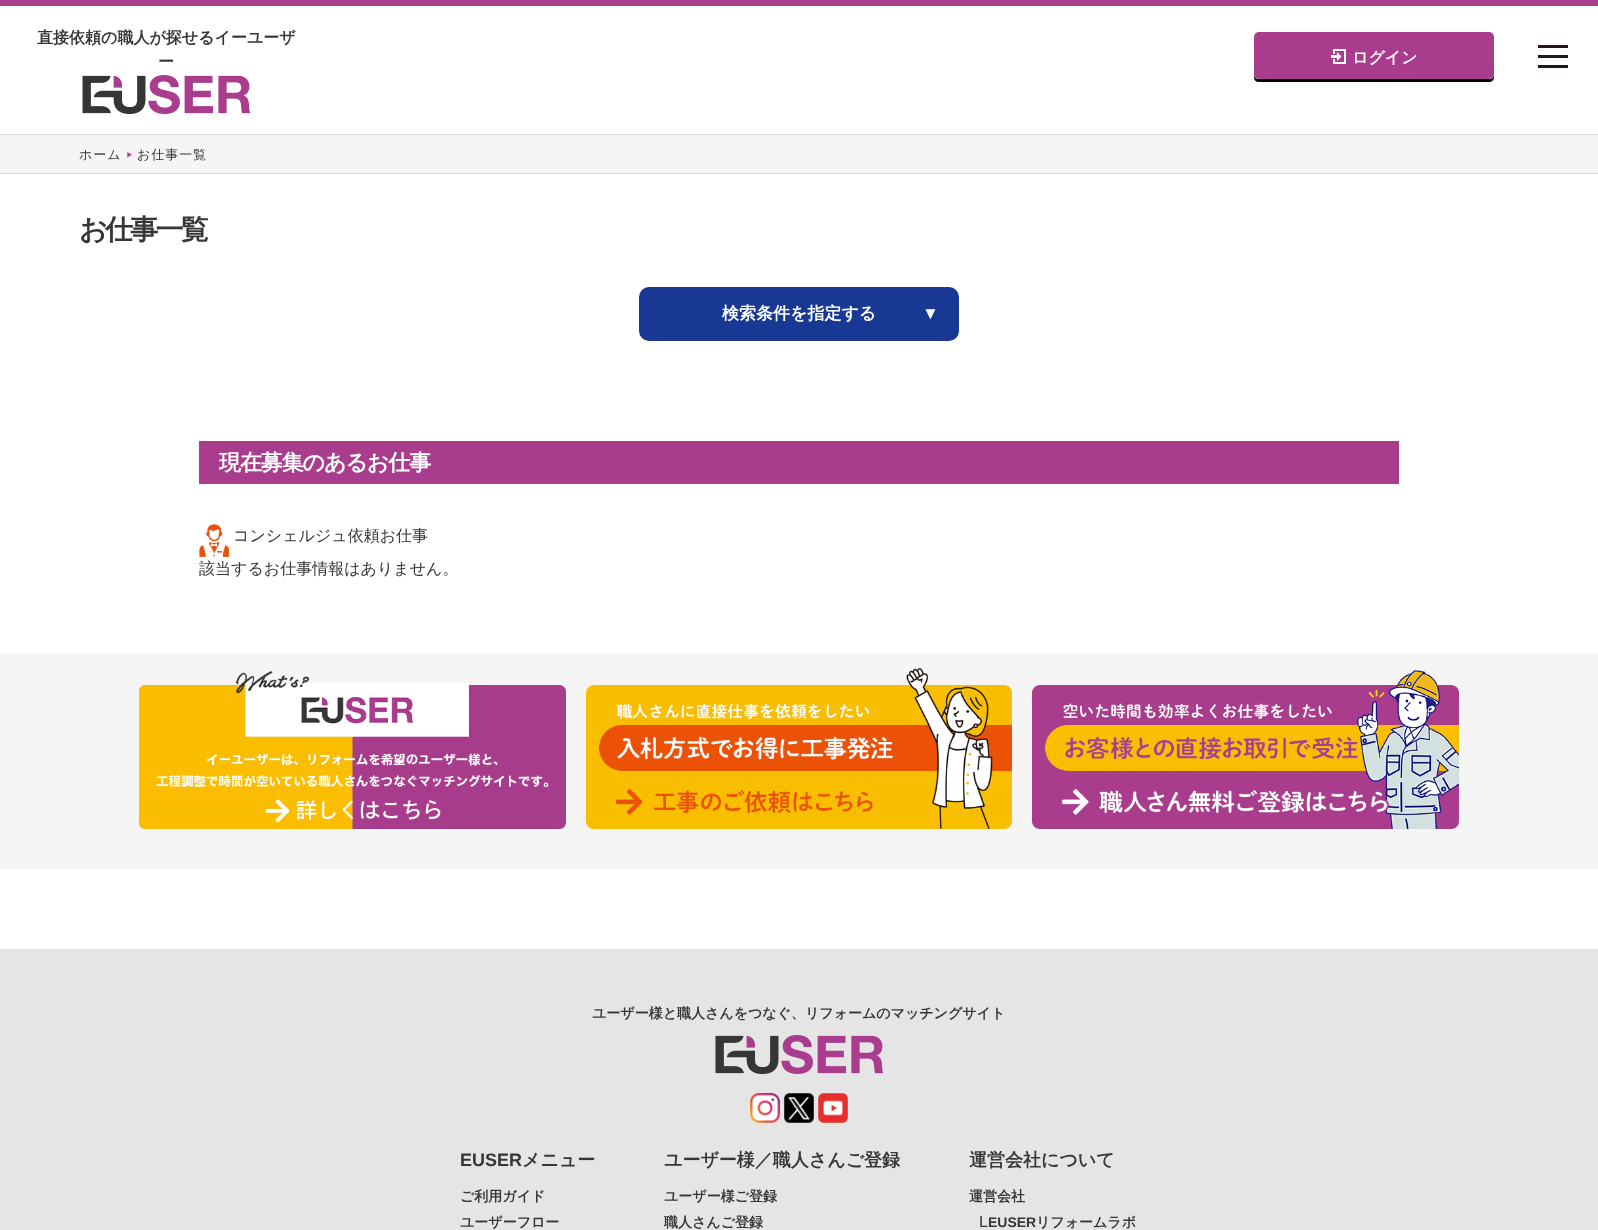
async function draw(canvas) {
  canvas.width = 1598;
  canvas.height = 1230;
  const ctx = canvas.getContext('2d');
  ctx.miterLimit = 4;
  ctx.fontKerning = 'normal';
  function label(s, x, y, font, color) {
    ctx.font = font;
    ctx.fillStyle = color;
    ctx.fillText(s, x, y);
  }
  function rect(x, y, w, h, color) {
    ctx.fillStyle = color;
    ctx.fillRect(x, y, w, h);
  }
  function roundedRect(x, y, w, h, r, color) {
    ctx.fillStyle = color;
    ctx.beginPath();
    ctx.roundRect(x, y, w, h, r);
    ctx.fill();
  }
  async function image(src, x, y, w, h) {
    const img = new Image();
    img.src = src;
    await img.decode();
    ctx.drawImage(img, x, y, w, h);
  }
  let path;

  rect(0, 0, 1598, 1230, '#fff');
  rect(0, 0, 1598, 6, '#a93c8c');
  label('直接依頼の職人が探せるイーユーザ', 37, 43, 'bold 16px WenQuanYi Zen Hei', '#383635');
  label('ー', 158, 67, 'bold 16px WenQuanYi Zen Hei', '#383635');
  await image('assets/img1.png', 82, 75, 169, 39);
  ctx.fillStyle = '#000';
  path = new Path2D('M1254 74V77C1254 80 1256 82 1259 82H1489C1492 82 1494 80 1494 77V74C1494 77 1492 79 1489 79H1259C1256 79 1254 77 1254 74Z');
  ctx.fill(path);
  roundedRect(1254, 32, 240, 47, 5, '#a93c8c');
  await image('assets/img2.png', 1331, 49, 15, 15);
  label('ログイン', 1352, 63, 'bold 16px WenQuanYi Zen Hei', '#fff');
  rect(1538, 45, 30, 3, '#231815');
  rect(1538, 55, 30, 3, '#231815');
  rect(1538, 65, 30, 3, '#231815');
  rect(0, 135, 1598, 38, '#f5f5f5');
  rect(0, 134, 1598, 1, '#ddd');
  rect(0, 173, 1598, 1, '#ddd');
  ctx.letterSpacing = '1px';
  label('ホーム', 79, 159, '500 13px WenQuanYi Zen Hei', '#383635');
  await image('assets/img3.png', 127, 152, 5, 6);
  label('お仕事一覧', 137, 159, '500 13px WenQuanYi Zen Hei', '#383635');
  ctx.letterSpacing = '-2.75px';
  label('お仕事一覧', 79, 239, 'bold 28px WenQuanYi Zen Hei', '#383635');
  roundedRect(639, 287, 320, 54, 10, '#193893');
  ctx.letterSpacing = '0px';
  label('検索条件を指定する', 722, 319, 'bold 17px WenQuanYi Zen Hei', '#fff');
  label('▼', 922, 319, 'bold 17px Liberation Sans', '#fff');
  rect(199, 441, 1200, 43, '#a93c8c');
  ctx.letterSpacing = '-1.1px';
  label('現在募集のあるお仕事', 219, 470, 'bold 22px WenQuanYi Zen Hei', '#fff');
  await image('assets/img4.png', 199, 524, 30, 33);
  ctx.letterSpacing = '0px';
  label('コンシェルジュ依頼お仕事', 233, 541, '500 16px WenQuanYi Zen Hei', '#383635');
  label('該当するお仕事情報はありません。', 199, 574, '500 16px WenQuanYi Zen Hei', '#383635');
  rect(0, 653, 1598, 216, '#f5f5f5');
  await image('assets/img5.png', 139, 671, 427, 158);
  await image('assets/img6.png', 586, 668, 426, 161);
  await image('assets/img7.png', 1032, 670, 427, 159);
  rect(0, 949, 1598, 281, '#e5e5e5');
  label('ユーザー様と職人さんをつなぐ、リフォームのマッチングサイト', 592, 1018, 'bold 14px WenQuanYi Zen Hei', '#383635');
  await image('assets/img8.png', 715, 1035, 169, 39);
  await image('assets/img9.png', 750, 1093, 30, 30);
  await image('assets/img10.png', 784, 1093, 30, 30);
  await image('assets/img11.png', 818, 1093, 30, 30);
  label('EUSER', 460, 1166, 'bold 18px Liberation Sans', '#383635');
  label('メニュー', 522, 1166, 'bold 18px WenQuanYi Zen Hei', '#383635');
  label('ご利用ガイド', 460, 1201, 'bold 14px WenQuanYi Zen Hei', '#383635');
  label('ユーザーフロー', 460, 1227, 'bold 14px WenQuanYi Zen Hei', '#383635');
  label('ユーザー様／職人さんご登録', 664, 1166, 'bold 18px WenQuanYi Zen Hei', '#383635');
  label('ユーザー様ご登録', 664, 1201, 'bold 14px WenQuanYi Zen Hei', '#383635');
  label('職人さんご登録', 664, 1227, 'bold 14px WenQuanYi Zen Hei', '#383635');
  label('運営会社について', 969, 1166, 'bold 18px WenQuanYi Zen Hei', '#383635');
  label('運営会社', 969, 1201, 'bold 14px WenQuanYi Zen Hei', '#383635');
  label('L', 979, 1227, '16px Liberation Sans', '#383635');
  label('EUSER', 988, 1227, 'bold 14px Liberation Sans', '#383635');
  label('リフォームラボ', 1036, 1227, 'bold 14px WenQuanYi Zen Hei', '#383635');
}

draw(document.querySelector('canvas'));
